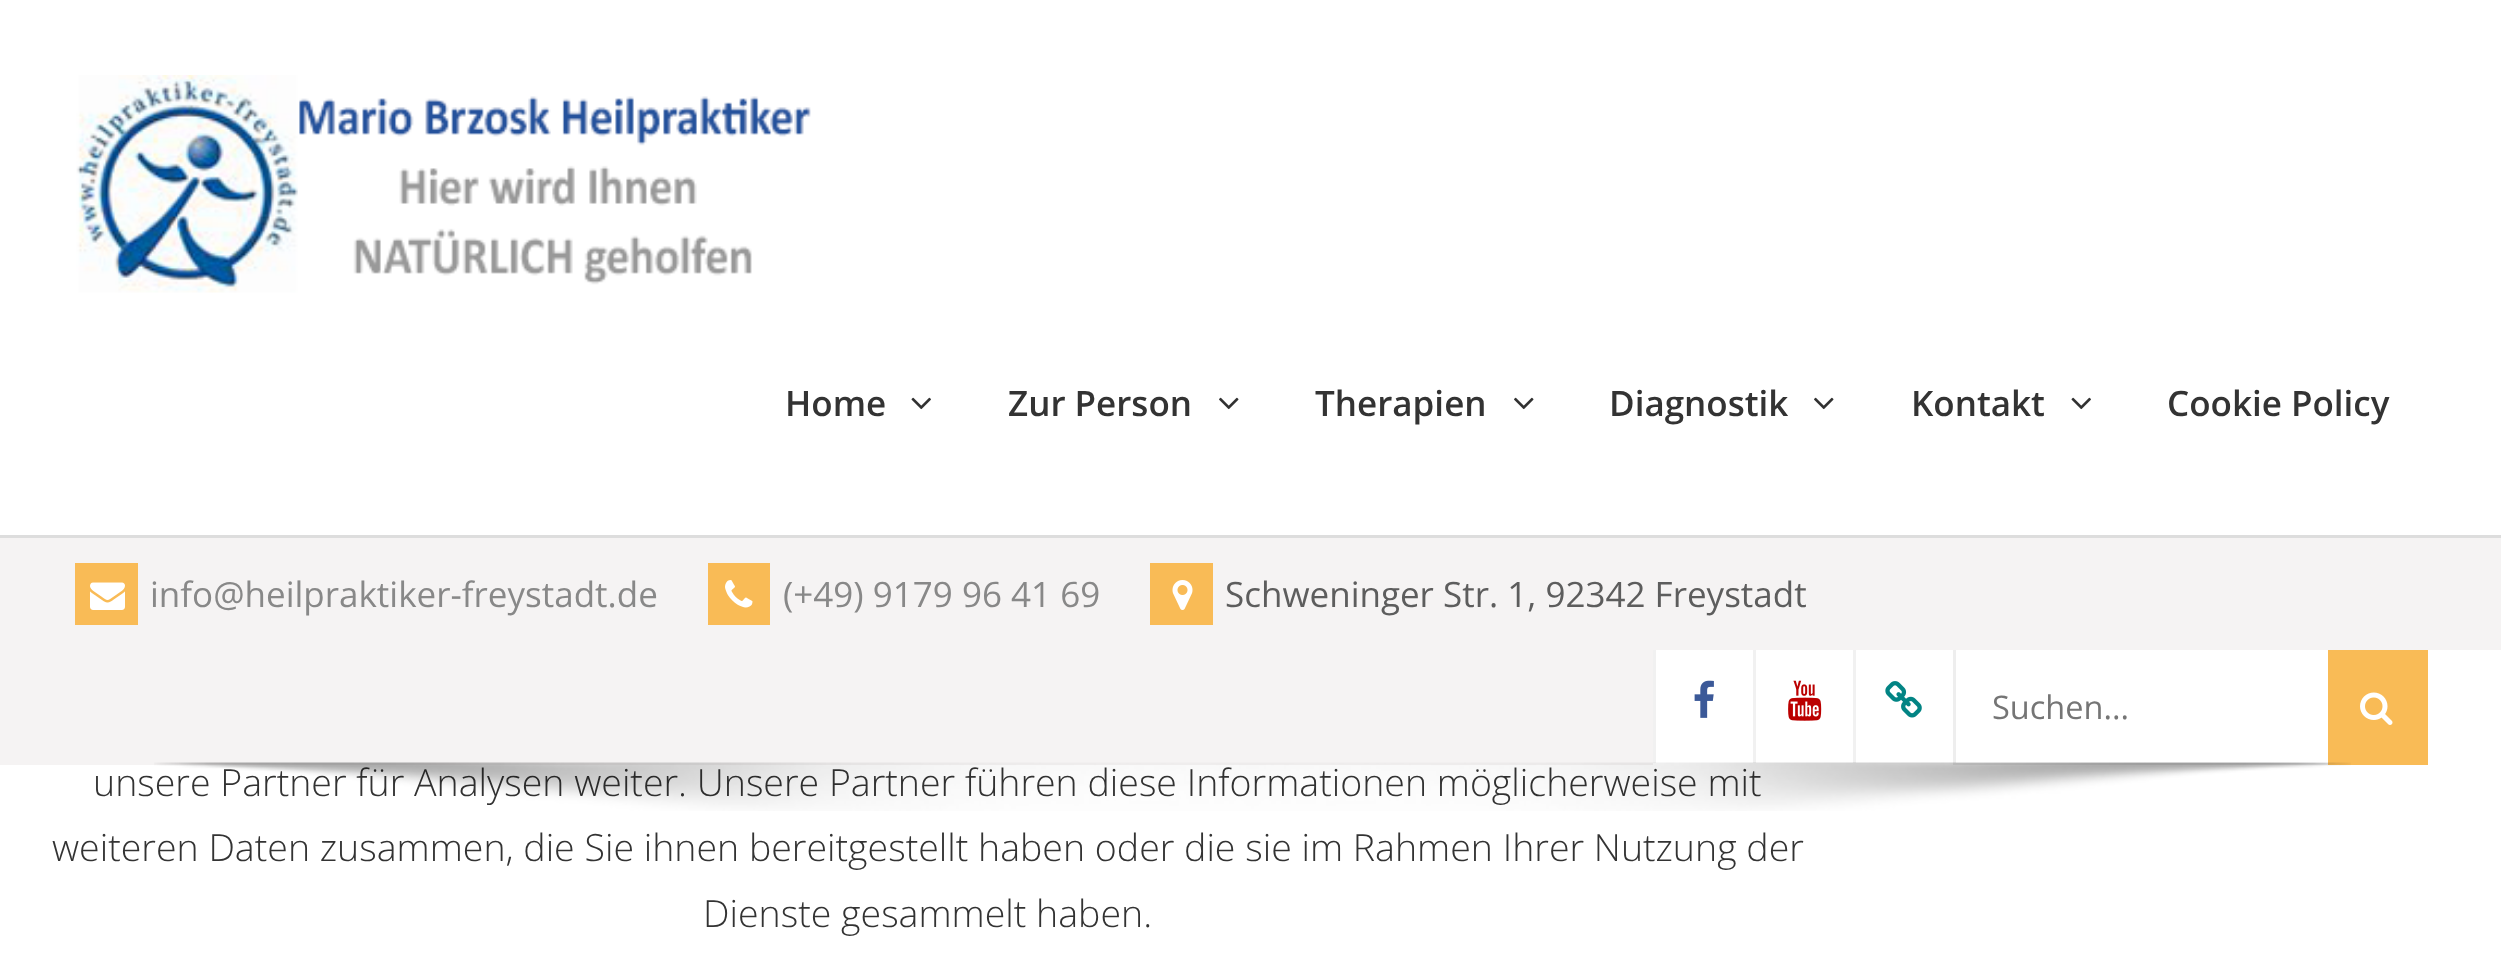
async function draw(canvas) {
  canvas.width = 2501;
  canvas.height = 975;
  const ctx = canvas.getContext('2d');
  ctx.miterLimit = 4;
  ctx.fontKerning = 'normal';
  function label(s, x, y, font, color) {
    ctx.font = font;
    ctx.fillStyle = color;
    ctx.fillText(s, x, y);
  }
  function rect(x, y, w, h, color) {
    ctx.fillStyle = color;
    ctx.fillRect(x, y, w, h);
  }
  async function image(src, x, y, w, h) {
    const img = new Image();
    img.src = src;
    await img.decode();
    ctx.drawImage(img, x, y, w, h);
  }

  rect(0, 0, 2501, 975, '#fff');
  rect(0, 535, 2501, 3, '#ddd');
  await image('assets/img1.png', 76, 75, 735, 218);
  label('Home', 785, 416, '600 35px Open Sans', '#333');
  await image('assets/img2.png', 911, 397, 20, 13);
  label('Zur Person', 1008, 416, '600 35px Open Sans', '#333');
  await image('assets/img3.png', 1219, 397, 20, 13);
  label('Therapien', 1315, 416, '600 35px Open Sans', '#333');
  await image('assets/img3.png', 1514, 397, 20, 13);
  label('Diagnostik', 1609, 416, '600 35px Open Sans', '#333');
  await image('assets/img3.png', 1814, 397, 20, 13);
  label('Kontakt', 1911, 416, '600 35px Open Sans', '#333');
  await image('assets/img2.png', 2071, 397, 20, 13);
  label('Cookie Policy', 2167, 416, '600 35px Open Sans', '#333');
  rect(0, 538, 2501, 227, '#f5f3f3');
  rect(75, 563, 63, 62, '#f9bb56');
  await image('assets/img4.png', 90, 582, 35, 28);
  label('info@heilpraktiker-freystadt.de', 150, 607, '35px Open Sans', '#888');
  rect(708, 563, 62, 62, '#f9bb56');
  await image('assets/img5.png', 725, 580, 28, 28);
  label('(+49) 9179 96 41 69', 783, 607, '35px Open Sans', '#888');
  rect(1150, 563, 63, 62, '#f9bb56');
  await image('assets/img6.png', 1172, 580, 21, 30);
  label('Schweninger Str. 1, 92342 Freystadt', 1225, 607, '35px Open Sans', '#5d5d5d');
  rect(1653, 650, 848, 115, '#fff');
  rect(1653, 650, 3, 113, '#f1f1f1');
  await image('assets/img7.png', 1694, 680, 20, 38);
  rect(1753, 650, 3, 113, '#f1f1f1');
  await image('assets/img8.png', 1788, 680, 34, 41);
  rect(1853, 650, 3, 113, '#f1f1f1');
  await image('assets/img9.png', 1885, 681, 37, 37);
  rect(1953, 763, 375, 2, '#eee');
  rect(1953, 650, 3, 115, '#eee');
  label('Suchen...', 1992, 719, '32.5px Open Sans', '#757575');
  rect(2328, 650, 100, 115, '#f9bb56');
  await image('assets/img10.png', 2360, 692, 33, 33);
  label('unsere Partner für Analysen weiter. Unsere Partner führen diese Informationen möglicherweise mit', 93, 796, '300 37.5px Open Sans', '#333');
  await image('assets/img11.png', 154, 762, 2197, 49);
  label('weiteren Daten zusammen, die Sie ihnen bereitgestellt haben oder die sie im Rahmen Ihrer Nutzung der', 52, 861, '300 37.5px Open Sans', '#333');
  label('Dienste gesammelt haben.', 703, 927, '300 37.5px Open Sans', '#333');
}

draw(document.querySelector('canvas'));
